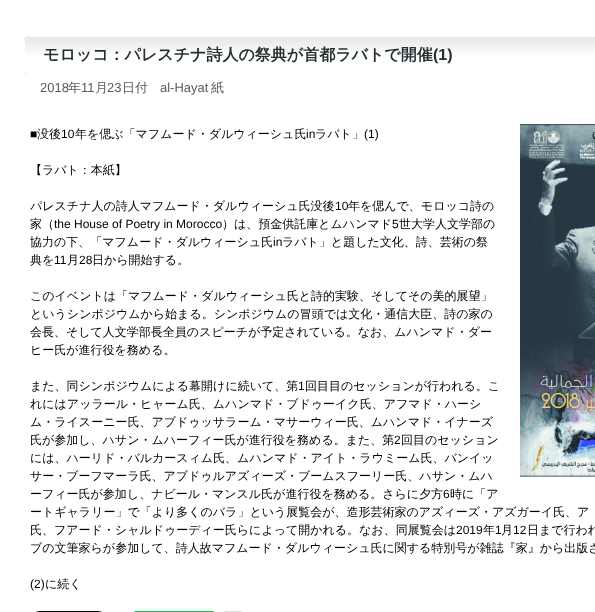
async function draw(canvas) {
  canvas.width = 595;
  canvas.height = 612;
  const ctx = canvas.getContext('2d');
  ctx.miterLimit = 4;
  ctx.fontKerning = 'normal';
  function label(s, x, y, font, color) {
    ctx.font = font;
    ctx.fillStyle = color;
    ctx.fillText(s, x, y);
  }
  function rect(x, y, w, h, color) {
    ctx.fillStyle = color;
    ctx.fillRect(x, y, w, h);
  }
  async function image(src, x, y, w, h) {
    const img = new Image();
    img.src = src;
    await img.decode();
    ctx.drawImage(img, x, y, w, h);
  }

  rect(0, 0, 595, 612, '#fff');
  ctx.fillStyle = '#999';
  ctx.filter = 'blur(0.5px)';
  ctx.beginPath();
  ctx.roundRect(24, 36, 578, 39, 5);
  ctx.fill();
  ctx.filter = 'none';
  await image('assets/img1.png', 24, 37, 571, 38);
  ctx.beginPath();
  ctx.roundRect(24.5, 36.5, 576, 38, 4.5);
  ctx.strokeStyle = '#fff';
  ctx.stroke();
  label('モロッコ：パレスチナ詩人の祭典が首都ラバトで開催', 43, 60, 'bold 16px WenQuanYi Zen Hei', '#223030');
  label('(1)', 433, 60, 'bold 16px Liberation Sans', '#223030');
  label('2018', 40, 92, '13px Liberation Sans', '#5b5b5b');
  label('年', 68, 92, '500 13px WenQuanYi Zen Hei', '#5b5b5b');
  label('11', 81, 92, '13px Liberation Sans', '#5b5b5b');
  label('月', 95, 92, '500 13px WenQuanYi Zen Hei', '#5b5b5b');
  label('23', 107, 92, '13px Liberation Sans', '#5b5b5b');
  label('日付', 122, 92, '500 13px WenQuanYi Zen Hei', '#5b5b5b');
  label('al-Hayat', 160, 92, '13px Liberation Sans', '#5b5b5b');
  label('紙', 211, 92, '500 13px WenQuanYi Zen Hei', '#5b5b5b');
  label('■', 30, 138, '12px Liberation Sans', '#000');
  label('没後', 37, 138, '500 12px WenQuanYi Zen Hei', '#000');
  label('10', 61, 138, '12px Liberation Sans', '#000');
  label('年を偲ぶ「マフムード・ダルウィーシュ氏', 75, 138, '500 12px WenQuanYi Zen Hei', '#000');
  label('in', 306, 138, '12px Liberation Sans', '#000');
  label('ラバト」', 315, 138, '500 12px WenQuanYi Zen Hei', '#000');
  label('(1)', 364, 138, '12px Liberation Sans', '#000');
  await image('assets/img2.png', 520, 124, 75, 353);
  label('【ラバト：本紙】', 30, 174, '500 12px WenQuanYi Zen Hei', '#000');
  label('パレスチナ人の詩人マフムード・ダルウィーシュ氏没後', 30, 210, '500 12px WenQuanYi Zen Hei', '#000');
  label('10', 335, 210, '12px Liberation Sans', '#000');
  label('年を偲んで、モロッコ詩の', 348, 210, '500 12px WenQuanYi Zen Hei', '#000');
  label('家（', 30, 228, '500 12px WenQuanYi Zen Hei', '#000');
  label('the House of Poetry in Morocco', 54, 228, '12px Liberation Sans', '#000');
  label('）は、預金供託庫とムハンマド', 222, 228, '500 12px WenQuanYi Zen Hei', '#000');
  label('5', 392, 228, '12px Liberation Sans', '#000');
  label('世大学人文学部の', 399, 228, '500 12px WenQuanYi Zen Hei', '#000');
  label('協力の下、「マフムード・ダルウィーシュ氏', 30, 246, '500 12px WenQuanYi Zen Hei', '#000');
  label('in', 273, 246, '12px Liberation Sans', '#000');
  label('ラバト」と題した文化、詩、芸術の祭', 282, 246, '500 12px WenQuanYi Zen Hei', '#000');
  label('典を', 30, 264, '500 12px WenQuanYi Zen Hei', '#000');
  label('11', 54, 264, '12px Liberation Sans', '#000');
  label('月', 67, 264, '500 12px WenQuanYi Zen Hei', '#000');
  label('28', 79, 264, '12px Liberation Sans', '#000');
  label('日から開始する。', 92, 264, '500 12px WenQuanYi Zen Hei', '#000');
  label('このイベントは「マフムード・ダルウィーシュ氏と詩的実験、そしてその美的展望」', 30, 300, '500 12px WenQuanYi Zen Hei', '#000');
  label('というシンポジウムから始まる。シンポジウムの冒頭では文化・通信大臣、詩の家の', 30, 318, '500 12px WenQuanYi Zen Hei', '#000');
  label('会長、そして人文学部長全員のスピーチが予定されている。なお、ムハンマド・ダー', 30, 336, '500 12px WenQuanYi Zen Hei', '#000');
  label('ヒー氏が進行役を務める。', 30, 354, '500 12px WenQuanYi Zen Hei', '#000');
  label('また、同シンポジウムによる幕開けに続いて、第', 30, 390, '500 12px WenQuanYi Zen Hei', '#000');
  label('1', 298, 390, '12px Liberation Sans', '#000');
  label('回目目のセッションが行われる。こ', 305, 390, '500 12px WenQuanYi Zen Hei', '#000');
  label('れにはアッラール・ヒャーム氏、ムハンマド・ブドゥーイク氏、アフマド・ハーシ', 30, 408, '500 12px WenQuanYi Zen Hei', '#000');
  label('ム・ライスーニー氏、アブドゥッサラーム・マサーウィー氏、ムハンマド・イナーズ', 30, 426, '500 12px WenQuanYi Zen Hei', '#000');
  label('氏が参加し、ハサン・ムハーフィー氏が進行役を務める。また、第', 30, 444, '500 12px WenQuanYi Zen Hei', '#000');
  label('2', 394, 444, '12px Liberation Sans', '#000');
  label('回目のセッション', 401, 444, '500 12px WenQuanYi Zen Hei', '#000');
  label('には、ハーリド・バルカースィム氏、ムハンマド・アイト・ラウミーム氏、バンイッ', 30, 462, '500 12px WenQuanYi Zen Hei', '#000');
  label('サー・ブーフマーラ氏、アブドゥルアズィーズ・ブームスフーリー氏、ハサン・ムハ', 30, 480, '500 12px WenQuanYi Zen Hei', '#000');
  label('ーフィー氏が参加し、ナビール・マンスル氏が進行役を務める。さらに夕方', 30, 498, '500 12px WenQuanYi Zen Hei', '#000');
  label('6', 443, 498, '12px Liberation Sans', '#000');
  label('時に「ア', 450, 498, '500 12px WenQuanYi Zen Hei', '#000');
  label('ートギャラリー」で「より多くのバラ」という展覧会が、造形芸術家のアズィーズ・アズガーイ氏、ア', 30, 516, '500 12px WenQuanYi Zen Hei', '#000');
  label('氏、フアード・シャルドゥーディー氏らによって開かれる。なお、同展覧会は', 30, 534, '500 12px WenQuanYi Zen Hei', '#000');
  label('2019', 456, 534, '12px Liberation Sans', '#000');
  label('年', 483, 534, '500 12px WenQuanYi Zen Hei', '#000');
  label('1', 495, 534, '12px Liberation Sans', '#000');
  label('月', 501, 534, '500 12px WenQuanYi Zen Hei', '#000');
  label('12', 513, 534, '12px Liberation Sans', '#000');
  label('日まで行われ', 527, 534, '500 12px WenQuanYi Zen Hei', '#000');
  label('ブの文筆家らが参加して、詩人故マフムード・ダルウィーシュ氏に関する特別号が雑誌『家』から出版さ', 30, 552, '500 12px WenQuanYi Zen Hei', '#000');
  label('(2)', 30, 588, '12px Liberation Sans', '#000');
  label('に続く', 45, 588, '500 12px WenQuanYi Zen Hei', '#000');
  await image('assets/img3.png', 36, 611, 66, 1);
  await image('assets/img4.png', 133, 611, 109, 1);
}

draw(document.querySelector('canvas'));
